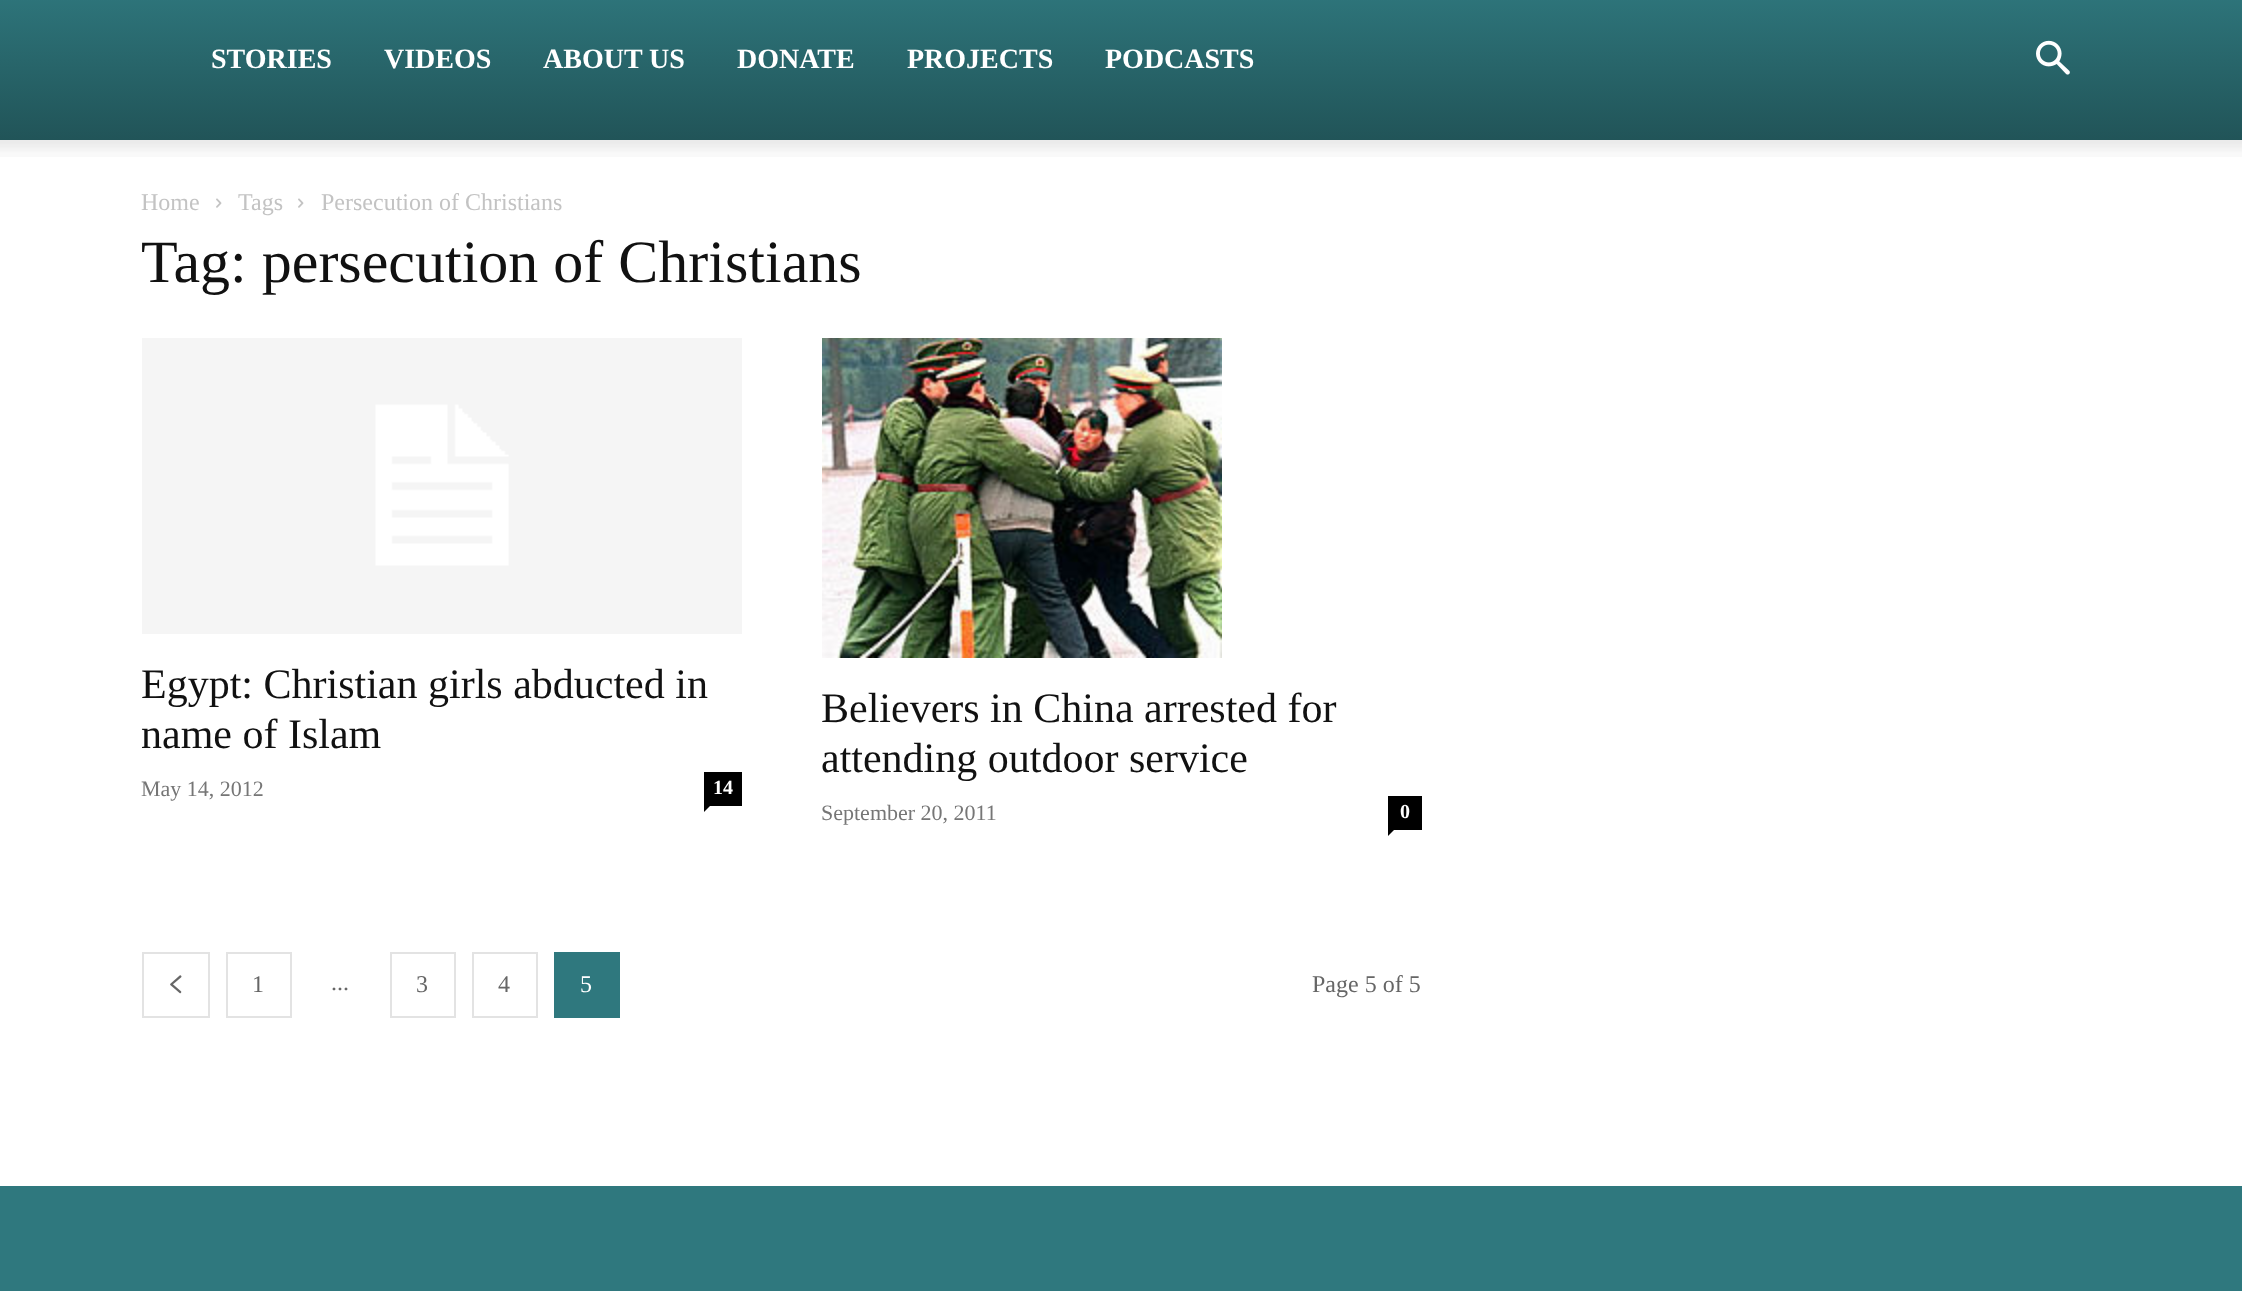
async function draw(canvas) {
  canvas.width = 2242;
  canvas.height = 1291;
  const ctx = canvas.getContext('2d');
  ctx.miterLimit = 4;
  ctx.fontKerning = 'normal';
  function label(s, x, y, font, color) {
    ctx.font = font;
    ctx.fillStyle = color;
    ctx.fillText(s, x, y);
  }
  function rect(x, y, w, h, color) {
    ctx.fillStyle = color;
    ctx.fillRect(x, y, w, h);
  }
  async function image(src, x, y, w, h) {
    const img = new Image();
    img.src = src;
    await img.decode();
    ctx.drawImage(img, x, y, w, h);
  }
  let gradient, path;

  rect(0, 0, 2242, 1291, '#fff');
  gradient = ctx.createLinearGradient(1121, -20, 1121, 140);
  gradient.addColorStop(0, '#2f787e');
  gradient.addColorStop(1, '#215458');
  ctx.fillStyle = gradient;
  ctx.fillRect(0, 0, 2242, 140);
  label('STORIES', 211, 68, 'bold 28px Liberation Serif', '#fff');
  label('VIDEOS', 384, 68, 'bold 28px Liberation Serif', '#fff');
  label('ABOUT US', 543, 68, 'bold 28px Liberation Serif', '#fff');
  label('DONATE', 737, 68, 'bold 28px Liberation Serif', '#fff');
  label('PROJECTS', 907, 68, 'bold 28px Liberation Serif', '#fff');
  label('PODCASTS', 1105, 68, 'bold 28px Liberation Serif', '#fff');
  await image('assets/img1.png', 2036, 40, 34, 35);
  await image('assets/img2.png', 0, 140, 2242, 17);
  label('Home', 141, 210, '24px Liberation Serif', '#c3c3c3');
  await image('assets/img3.png', 216, 198, 6, 10);
  label('Tags', 238, 210, '24px Liberation Serif', '#c3c3c3');
  await image('assets/img3.png', 298, 198, 6, 10);
  label('Persecution of Christians', 321, 210, '24px Liberation Serif', '#c3c3c3');
  label('Tag: persecution of Christians', 141, 282, '60px Liberation Serif', '#111');
  await image('assets/img4.png', 142, 338, 600, 296);
  label('Egypt: Christian girls abducted in', 141, 698, '42px Liberation Serif', '#111');
  label('name of Islam', 141, 748, '42px Liberation Serif', '#111');
  label('May 14, 2012', 141, 796, '22px Liberation Serif', '#767676');
  rect(704, 772, 38, 34, '#000');
  label('14', 713, 794, 'bold 20px Liberation Serif', '#fff');
  ctx.fillStyle = '#000';
  path = new Path2D('M704 806H710L704 812Z');
  ctx.fill(path);
  await image('assets/img5.png', 822, 338, 400, 320);
  label('Believers in China arrested for', 821, 722, '42px Liberation Serif', '#111');
  label('attending outdoor service', 821, 772, '42px Liberation Serif', '#111');
  label('September 20, 2011', 821, 820, '22px Liberation Serif', '#767676');
  rect(1388, 796, 34, 34, '#000');
  label('0', 1400, 818, 'bold 20px Liberation Serif', '#fff');
  ctx.fillStyle = '#000';
  path = new Path2D('M1388 830H1394L1388 836Z');
  ctx.fill(path);
  ctx.strokeStyle = '#e3e3e3';
  ctx.lineWidth = 2;
  ctx.strokeRect(143, 953, 66, 64);
  await image('assets/img6.png', 170, 975, 12, 19);
  ctx.strokeRect(227, 953, 64, 64);
  label('1', 252, 992, '24px Liberation Serif', '#666');
  label('...', 331, 990, '24px Liberation Serif', '#666');
  ctx.strokeRect(391, 953, 64, 64);
  label('3', 416, 992, '24px Liberation Serif', '#666');
  ctx.strokeRect(473, 953, 64, 64);
  label('4', 498, 992, '24px Liberation Serif', '#666');
  rect(554, 952, 66, 66, '#2f787e');
  label('5', 580, 992, '24px Liberation Serif', '#fff');
  label('Page 5 of 5', 1312, 992, '24px Liberation Serif', '#666');
  rect(0, 1186, 2242, 105, '#2f787e');
}

draw(document.querySelector('canvas'));
